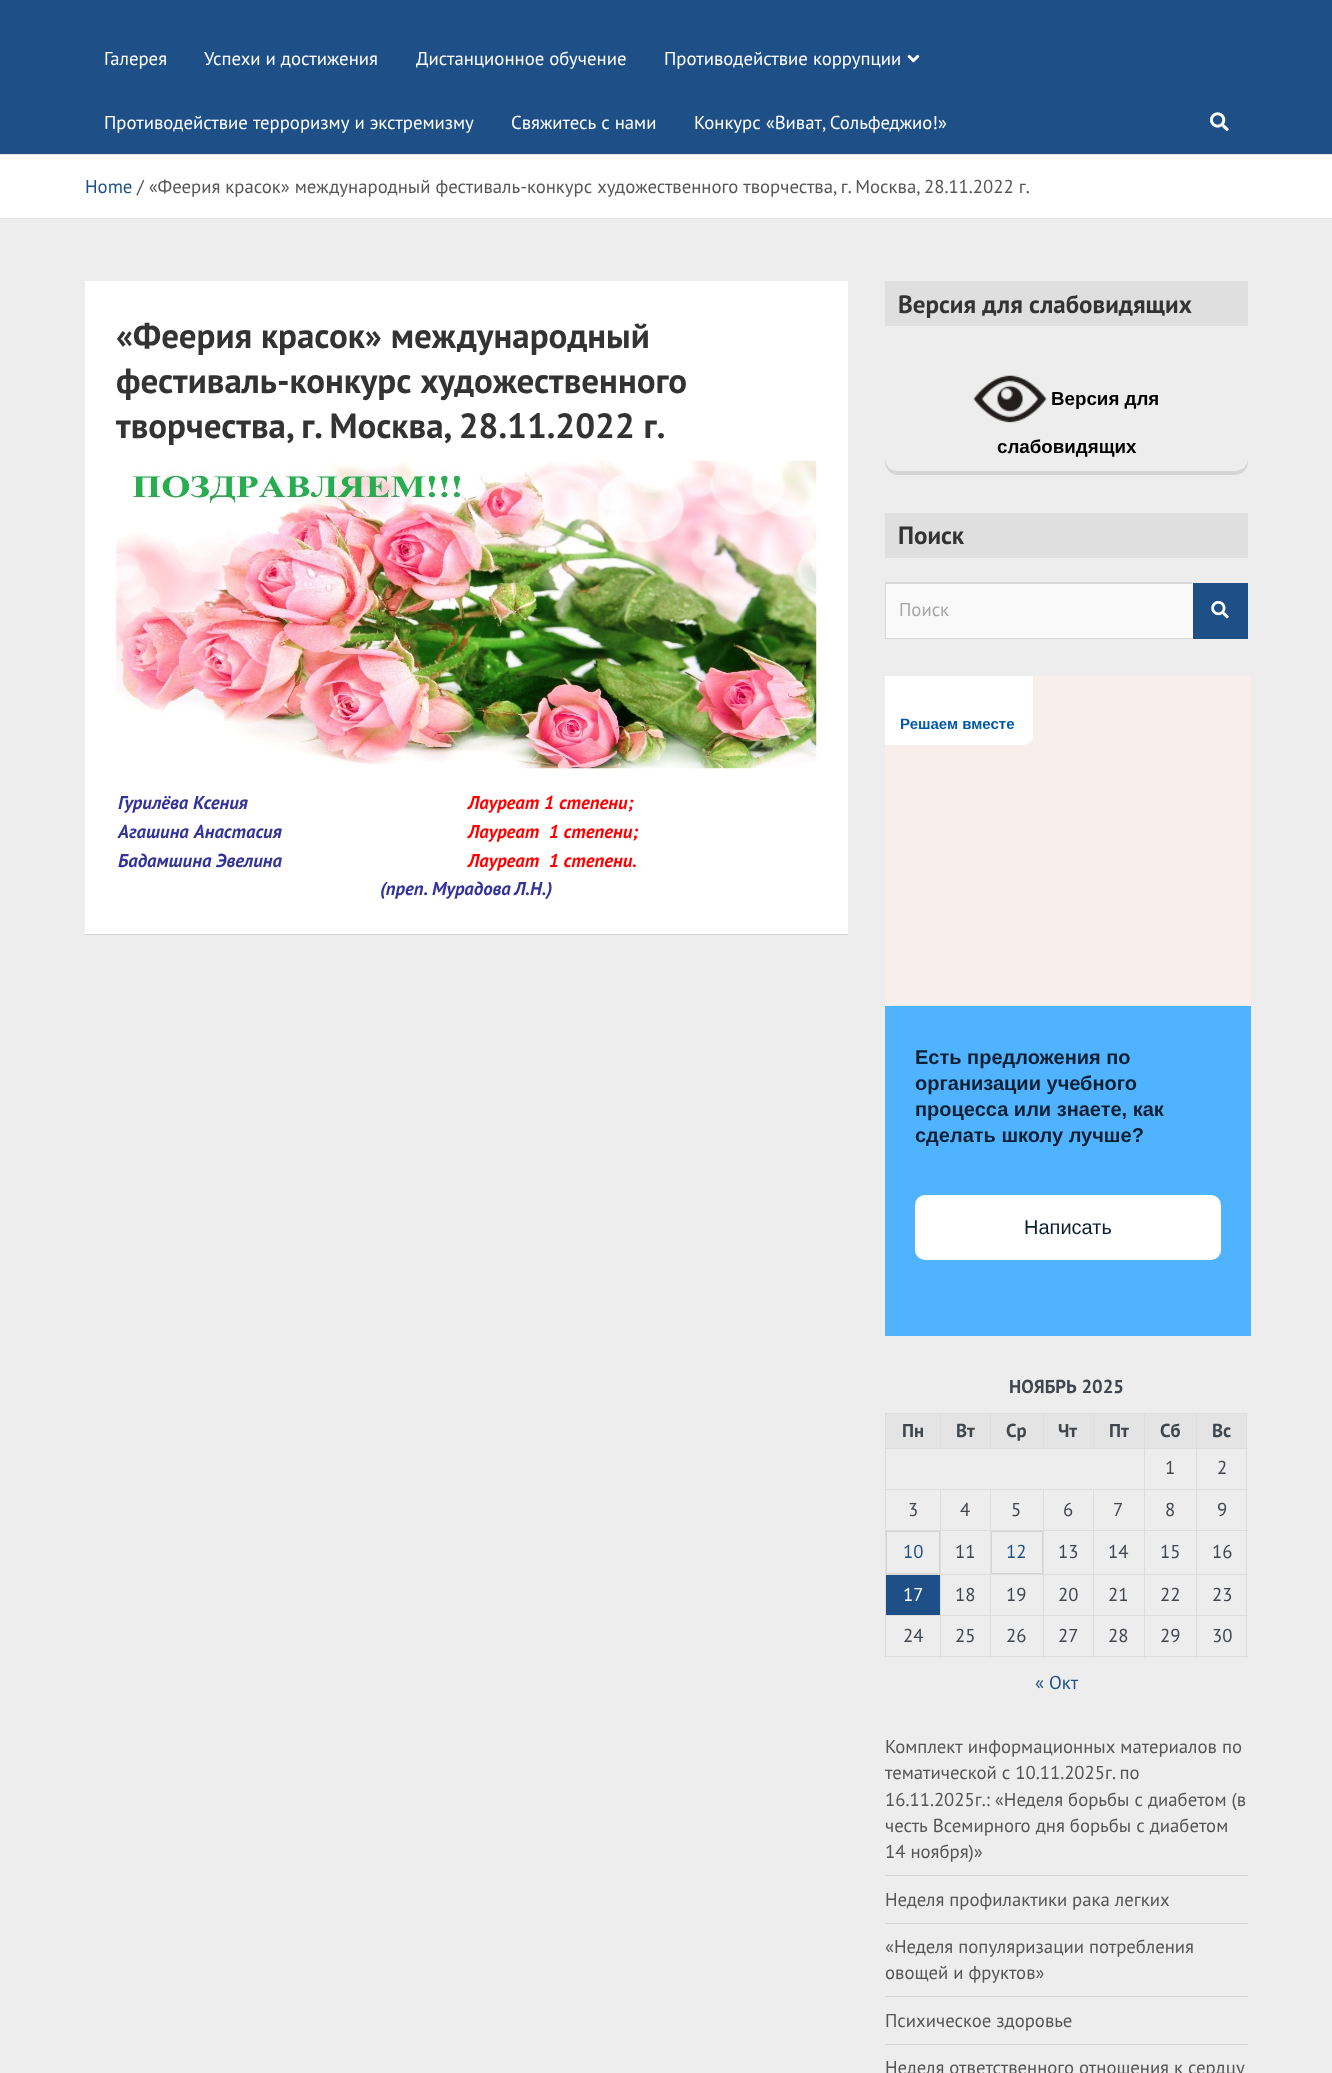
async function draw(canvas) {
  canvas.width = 1332;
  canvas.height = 2073;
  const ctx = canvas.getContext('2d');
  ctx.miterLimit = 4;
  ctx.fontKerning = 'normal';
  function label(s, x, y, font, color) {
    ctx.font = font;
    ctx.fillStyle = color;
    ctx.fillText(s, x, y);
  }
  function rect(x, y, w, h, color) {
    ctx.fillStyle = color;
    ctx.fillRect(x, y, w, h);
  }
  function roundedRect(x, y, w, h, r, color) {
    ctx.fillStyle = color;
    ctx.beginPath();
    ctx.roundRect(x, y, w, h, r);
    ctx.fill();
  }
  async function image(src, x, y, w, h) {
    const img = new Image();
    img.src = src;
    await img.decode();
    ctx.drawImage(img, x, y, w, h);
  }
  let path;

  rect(0, 0, 1332, 2073, '#ededed');
  rect(0, 0, 1332, 154, '#1e5087');
  label('Галерея', 104, 65, '18.75px PT Sans', '#fff');
  label('Успехи и достижения', 204, 65, '18.75px PT Sans', '#fff');
  label('Дистанционное обучение', 416, 65, '18.75px PT Sans', '#fff');
  label('Противодействие коррупции', 664, 65, '18.75px PT Sans', '#fff');
  await image('assets/img1.png', 907, 54, 13, 9);
  label('Противодействие терроризму и экстремизму', 104, 129, '18.75px PT Sans', '#fff');
  label('Свяжитесь с нами', 511, 129, '18.75px PT Sans', '#fff');
  label('Конкурс «Виват, Сольфеджио!»', 694, 129, '18.75px PT Sans', '#fff');
  await image('assets/img2.png', 1210, 112, 19, 19);
  rect(0, 155, 1332, 63, '#fff');
  rect(0, 154, 1332, 1, '#e6e6e6');
  rect(0, 218, 1332, 1, '#e6e6e6');
  label('Home', 85, 193, '18.75px PT Sans', '#1e5087');
  label('/ «Феерия красок» международный фестиваль-конкурс художественного творчества, г. Москва, 28.11.2022 г.', 137, 193, '18.75px PT Sans', '#555');
  ctx.fillStyle = '#0000001a';
  ctx.filter = 'blur(0.5px)';
  ctx.beginPath();
  ctx.rect(85, 283, 763, 652);
  ctx.fill();
  ctx.filter = 'none';
  rect(85, 281, 763, 653, '#fff');
  label('«Феерия красок» международный', 116, 348, 'bold 35px PT Sans', '#333');
  label('фестиваль-конкурс художественного', 116, 393, 'bold 35px PT Sans', '#333');
  label('творчества, г. Москва, 28.11.2022 г.', 116, 438, 'bold 35px PT Sans', '#333');
  await image('assets/img3.png', 116, 460, 701, 309);
  label('Гурилёва Ксения', 118, 809, 'italic bold 18.75px PT Sans', '#339');
  label('Лауреат 1 степени;', 468, 809, 'italic bold 18.75px PT Sans', '#f00');
  ctx.wordSpacing = '1px';
  label('Агашина Анастасия', 118, 838, 'italic bold 18.75px PT Sans', '#339');
  ctx.wordSpacing = '0px';
  label('Лауреат  1 степени;', 468, 838, 'italic bold 18.75px PT Sans', '#f00');
  label('Бадамшина Эвелина', 118, 867, 'italic bold 18.75px PT Sans', '#339');
  label('Лауреат  1 степени.', 468, 867, 'italic bold 18.75px PT Sans', '#f00');
  ctx.wordSpacing = '-1px';
  label('(преп. Мурадова Л.Н.)', 380, 895, 'italic bold 18.75px PT Sans', '#339');
  rect(885, 281, 363, 45, '#dfdfdf');
  ctx.wordSpacing = '0px';
  label('Версия для слабовидящих', 898, 313, 'bold 25px PT Sans', '#333');
  ctx.fillStyle = '#d5d5d5';
  path = new Path2D('M885 459V462C885 469 891 475 898 475H1235C1242 475 1248 469 1248 462V459C1248 466 1242 471 1235 471H898C891 471 885 466 885 459Z');
  ctx.fill(path);
  await image('assets/img4.png', 973, 375, 74, 48);
  label('Версия для', 1051, 405, 'bold 18.75px Liberation Sans', '#000');
  label('слабовидящих', 997, 453, 'bold 18.75px Liberation Sans', '#000');
  rect(885, 513, 363, 45, '#dfdfdf');
  label('Поиск', 898, 544, 'bold 25px PT Sans', '#333');
  rect(886, 584, 307, 54, '#f9f9f9');
  ctx.fillStyle = '#d8d8d8';
  path = new Path2D('M885 582H1192V584H886Z');
  ctx.fill(path);
  path = new Path2D('M1192 639H885L886 638H1192Z');
  ctx.fill(path);
  ctx.fillStyle = '#00000017';
  path = new Path2D('M885 639V582L886 584V638Z');
  ctx.fill(path);
  label('Поиск', 899, 616, '18.75px PT Sans', '#a7a7a7');
  rect(1193, 583, 55, 56, '#1e5087');
  await image('assets/img5.png', 1211, 600, 18, 19);
  rect(885, 1006, 366, 330, '#50b3ff');
  rect(885, 676, 366, 330, '#f8efec');
  ctx.fillStyle = '#fff';
  ctx.beginPath();
  ctx.roundRect(885, 676, 148, 69, [0, 0, 10, 0]);
  ctx.fill();
  label('Решаем вместе', 900, 729, 'bold 15px Liberation Sans', '#005ca9');
  label('Есть предложения по', 915, 1064, 'bold 20px Liberation Sans', '#0b1f33');
  label('организации учебного', 915, 1090, 'bold 20px Liberation Sans', '#0b1f33');
  label('процесса или знаете, как', 915, 1116, 'bold 20px Liberation Sans', '#0b1f33');
  label('сделать школу лучше?', 915, 1142, 'bold 20px Liberation Sans', '#0b1f33');
  roundedRect(915, 1195, 306, 65, 10, '#fff');
  label('Написать', 1024, 1234, '20px Liberation Sans', '#0b1f33');
  label('НОЯБРЬ 2025', 1009, 1393, 'bold 18.75px PT Sans', '#40464d');
  rect(886, 1414, 54, 34, '#e4e4e4');
  rect(1196, 1413, 52, 1, '#ddd');
  rect(1196, 1448, 52, 1, '#ddd');
  rect(1196, 1489, 52, 1, '#ddd');
  rect(1196, 1530, 52, 1, '#ddd');
  rect(1196, 1574, 52, 1, '#ddd');
  rect(1196, 1615, 52, 1, '#ddd');
  rect(1246, 1615, 1, 43, '#ddd');
  rect(1196, 1656, 52, 1, '#ddd');
  rect(1196, 1615, 1, 43, '#ddd');
  rect(1144, 1615, 54, 1, '#ddd');
  rect(1196, 1574, 1, 42, '#ddd');
  rect(1144, 1574, 54, 1, '#ddd');
  rect(1196, 1530, 1, 45, '#ddd');
  rect(1144, 1530, 54, 1, '#ddd');
  rect(1196, 1489, 1, 42, '#ddd');
  rect(1144, 1489, 54, 1, '#ddd');
  rect(1196, 1448, 1, 42, '#ddd');
  rect(1144, 1448, 54, 1, '#ddd');
  rect(1196, 1413, 1, 36, '#ddd');
  rect(1144, 1413, 54, 1, '#ddd');
  rect(1144, 1656, 54, 1, '#ddd');
  rect(1144, 1615, 1, 43, '#ddd');
  rect(1093, 1615, 52, 1, '#ddd');
  rect(1144, 1574, 1, 42, '#ddd');
  rect(1093, 1574, 52, 1, '#ddd');
  rect(1144, 1530, 1, 45, '#ddd');
  rect(1093, 1530, 52, 1, '#ddd');
  rect(1144, 1489, 1, 42, '#ddd');
  rect(1093, 1489, 52, 1, '#ddd');
  rect(1144, 1448, 1, 42, '#ddd');
  rect(885, 1448, 260, 1, '#ddd');
  rect(1144, 1413, 1, 36, '#ddd');
  rect(1093, 1413, 52, 1, '#ddd');
  rect(1093, 1413, 1, 36, '#ddd');
  rect(1043, 1413, 51, 1, '#ddd');
  rect(1043, 1413, 1, 36, '#ddd');
  rect(990, 1413, 54, 1, '#ddd');
  rect(990, 1413, 1, 36, '#ddd');
  rect(940, 1413, 51, 1, '#ddd');
  rect(940, 1413, 1, 36, '#ddd');
  rect(885, 1413, 56, 1, '#ddd');
  rect(1093, 1656, 52, 1, '#ddd');
  rect(1093, 1615, 1, 43, '#ddd');
  rect(1043, 1615, 51, 1, '#ddd');
  rect(1093, 1574, 1, 42, '#ddd');
  rect(1043, 1574, 51, 1, '#ddd');
  rect(1093, 1530, 1, 45, '#ddd');
  rect(1043, 1530, 51, 1, '#ddd');
  rect(1093, 1489, 1, 42, '#ddd');
  rect(1043, 1489, 51, 1, '#ddd');
  rect(1043, 1656, 51, 1, '#ddd');
  rect(1043, 1615, 1, 43, '#ddd');
  rect(990, 1615, 54, 1, '#ddd');
  rect(1043, 1574, 1, 42, '#ddd');
  rect(990, 1574, 54, 1, '#ddd');
  rect(1043, 1530, 1, 45, '#ddd');
  rect(990, 1530, 54, 1, '#ddd');
  rect(1043, 1489, 1, 42, '#ddd');
  rect(990, 1489, 54, 1, '#ddd');
  rect(990, 1656, 54, 1, '#ddd');
  rect(990, 1615, 1, 43, '#ddd');
  rect(940, 1615, 51, 1, '#ddd');
  rect(990, 1574, 1, 42, '#ddd');
  rect(940, 1574, 51, 1, '#ddd');
  rect(990, 1530, 1, 45, '#ddd');
  rect(940, 1530, 51, 1, '#ddd');
  rect(990, 1489, 1, 42, '#ddd');
  rect(940, 1489, 51, 1, '#ddd');
  rect(940, 1656, 51, 1, '#ddd');
  rect(940, 1615, 1, 43, '#ddd');
  rect(885, 1615, 56, 1, '#ddd');
  rect(940, 1574, 1, 42, '#ddd');
  rect(885, 1574, 56, 1, '#ddd');
  rect(940, 1530, 1, 45, '#ddd');
  rect(885, 1530, 56, 1, '#ddd');
  rect(940, 1489, 1, 42, '#ddd');
  rect(885, 1489, 56, 1, '#ddd');
  rect(885, 1656, 56, 1, '#ddd');
  rect(885, 1615, 1, 43, '#ddd');
  rect(885, 1574, 1, 42, '#ddd');
  rect(885, 1530, 1, 45, '#ddd');
  rect(885, 1489, 1, 42, '#ddd');
  rect(885, 1448, 1, 42, '#ddd');
  rect(885, 1413, 1, 36, '#ddd');
  label('Пн', 902, 1437, 'bold 18.75px PT Sans', '#40464d');
  rect(941, 1414, 49, 34, '#e4e4e4');
  label('Вт', 956, 1437, 'bold 18.75px PT Sans', '#40464d');
  rect(991, 1414, 52, 34, '#e4e4e4');
  label('Ср', 1006, 1437, 'bold 18.75px PT Sans', '#40464d');
  rect(1044, 1414, 49, 34, '#e4e4e4');
  label('Чт', 1058, 1437, 'bold 18.75px PT Sans', '#40464d');
  rect(1094, 1414, 50, 34, '#e4e4e4');
  label('Пт', 1109, 1437, 'bold 18.75px PT Sans', '#40464d');
  rect(1145, 1414, 51, 34, '#e4e4e4');
  label('Сб', 1160, 1437, 'bold 18.75px PT Sans', '#40464d');
  rect(1197, 1414, 49, 34, '#e4e4e4');
  rect(1246, 1574, 1, 42, '#ddd');
  rect(1246, 1530, 1, 45, '#ddd');
  rect(1246, 1489, 1, 42, '#ddd');
  rect(1246, 1448, 1, 42, '#ddd');
  rect(1246, 1413, 1, 36, '#ddd');
  label('Вс', 1212, 1437, 'bold 18.75px PT Sans', '#40464d');
  label('1', 1165, 1474, '18.75px PT Sans', '#40464d');
  label('2', 1217, 1474, '18.75px PT Sans', '#40464d');
  label('3', 908, 1516, '18.75px PT Sans', '#40464d');
  label('4', 960, 1516, '18.75px PT Sans', '#40464d');
  label('5', 1011, 1516, '18.75px PT Sans', '#40464d');
  label('6', 1063, 1516, '18.75px PT Sans', '#40464d');
  label('7', 1113, 1516, '18.75px PT Sans', '#40464d');
  label('8', 1165, 1516, '18.75px PT Sans', '#40464d');
  label('9', 1217, 1516, '18.75px PT Sans', '#40464d');
  ctx.strokeStyle = '#d5d5d5';
  ctx.strokeRect(886.5, 1531.5, 53, 42);
  label('10', 903, 1558, '18.75px PT Sans', '#1e5087');
  label('11', 955, 1558, '18.75px PT Sans', '#40464d');
  ctx.strokeRect(991.5, 1531.5, 51, 42);
  label('12', 1006, 1558, '18.75px PT Sans', '#1e5087');
  label('13', 1058, 1558, '18.75px PT Sans', '#40464d');
  label('14', 1108, 1558, '18.75px PT Sans', '#40464d');
  label('15', 1160, 1558, '18.75px PT Sans', '#40464d');
  label('16', 1212, 1558, '18.75px PT Sans', '#40464d');
  rect(886, 1575, 54, 40, '#1e5087');
  label('17', 903, 1601, '18.75px PT Sans', '#fff');
  label('18', 955, 1601, '18.75px PT Sans', '#40464d');
  label('19', 1006, 1601, '18.75px PT Sans', '#40464d');
  label('20', 1058, 1601, '18.75px PT Sans', '#40464d');
  label('21', 1108, 1601, '18.75px PT Sans', '#40464d');
  label('22', 1160, 1601, '18.75px PT Sans', '#40464d');
  label('23', 1212, 1601, '18.75px PT Sans', '#40464d');
  label('24', 903, 1642, '18.75px PT Sans', '#40464d');
  label('25', 955, 1642, '18.75px PT Sans', '#40464d');
  label('26', 1006, 1642, '18.75px PT Sans', '#40464d');
  label('27', 1058, 1642, '18.75px PT Sans', '#40464d');
  label('28', 1108, 1642, '18.75px PT Sans', '#40464d');
  label('29', 1160, 1642, '18.75px PT Sans', '#40464d');
  label('30', 1212, 1642, '18.75px PT Sans', '#40464d');
  label('« Окт', 1035, 1689, '18.75px PT Sans', '#1e5087');
  rect(885, 1875, 363, 1, '#d5d5d5');
  label('Комплект информационных материалов по', 885, 1753, '18.75px PT Sans', '#555');
  label('тематической с 10.11.2025г. по', 885, 1779, '18.75px PT Sans', '#555');
  label('16.11.2025г.: «Неделя борьбы с диабетом (в', 885, 1806, '18.75px PT Sans', '#555');
  label('честь Всемирного дня борьбы с диабетом', 885, 1832, '18.75px PT Sans', '#555');
  label('14 ноября)»', 885, 1858, '18.75px PT Sans', '#555');
  rect(885, 1923, 363, 1, '#d5d5d5');
  label('Неделя профилактики рака легких', 885, 1906, '18.75px PT Sans', '#555');
  rect(885, 1996, 363, 1, '#d5d5d5');
  label('«Неделя популяризации потребления', 885, 1953, '18.75px PT Sans', '#555');
  label('овощей и фруктов»', 885, 1979, '18.75px PT Sans', '#555');
  rect(885, 2044, 363, 1, '#d5d5d5');
  label('Психическое здоровье', 885, 2027, '18.75px PT Sans', '#555');
  label('Неделя ответственного отношения к сердцу', 885, 2074, '18.75px PT Sans', '#555');
}

draw(document.querySelector('canvas'));
